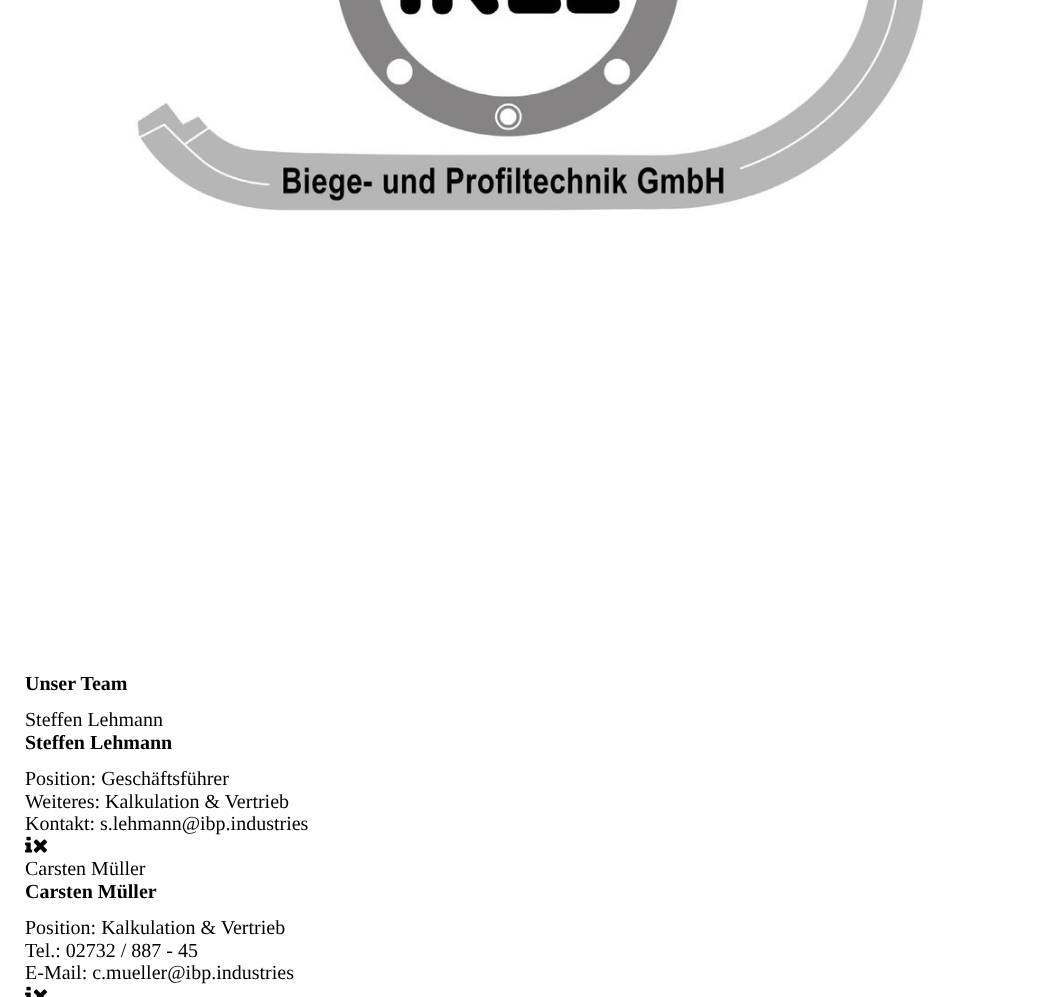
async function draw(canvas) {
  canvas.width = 1062;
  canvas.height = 997;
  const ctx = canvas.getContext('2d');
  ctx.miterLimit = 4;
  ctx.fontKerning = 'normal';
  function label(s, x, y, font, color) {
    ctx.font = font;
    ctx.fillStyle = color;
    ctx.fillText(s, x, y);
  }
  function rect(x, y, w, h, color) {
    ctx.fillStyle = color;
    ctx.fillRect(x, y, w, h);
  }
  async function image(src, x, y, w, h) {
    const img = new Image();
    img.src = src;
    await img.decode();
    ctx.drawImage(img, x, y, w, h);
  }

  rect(0, 0, 1062, 997, '#fff');
  await image('assets/img1.png', 134, 0, 790, 211);
  label('Unser Team', 25, 690, 'bold 20px Liberation Serif', '#000');
  label('Steffen Lehmann', 25, 726, '20px Liberation Serif', '#000');
  label('Steffen Lehmann', 25, 749, 'bold 20px Liberation Serif', '#000');
  label('Position: Geschäftsführer', 25, 785, '20px Liberation Serif', '#000');
  label('Weiteres: Kalkulation & Vertrieb', 25, 808, '20px Liberation Serif', '#000');
  label('Kontakt: s.lehmann@ibp.industries', 25, 830, '20px Liberation Serif', '#000');
  await image('assets/img2.png', 25, 836, 8, 17);
  await image('assets/img3.png', 33, 839, 14, 14);
  label('Carsten Müller', 25, 875, '20px Liberation Serif', '#000');
  label('Carsten Müller', 25, 898, 'bold 20px Liberation Serif', '#000');
  label('Position: Kalkulation & Vertrieb', 25, 934, '20px Liberation Serif', '#000');
  label('Tel.: 02732 / 887 - 45', 25, 957, '20px Liberation Serif', '#000');
  label('E-Mail: c.mueller@ibp.industries', 25, 979, '20px Liberation Serif', '#000');
  await image('assets/img4.png', 25, 986, 6, 11);
  await image('assets/img5.png', 33, 989, 14, 8);
}

draw(document.querySelector('canvas'));
